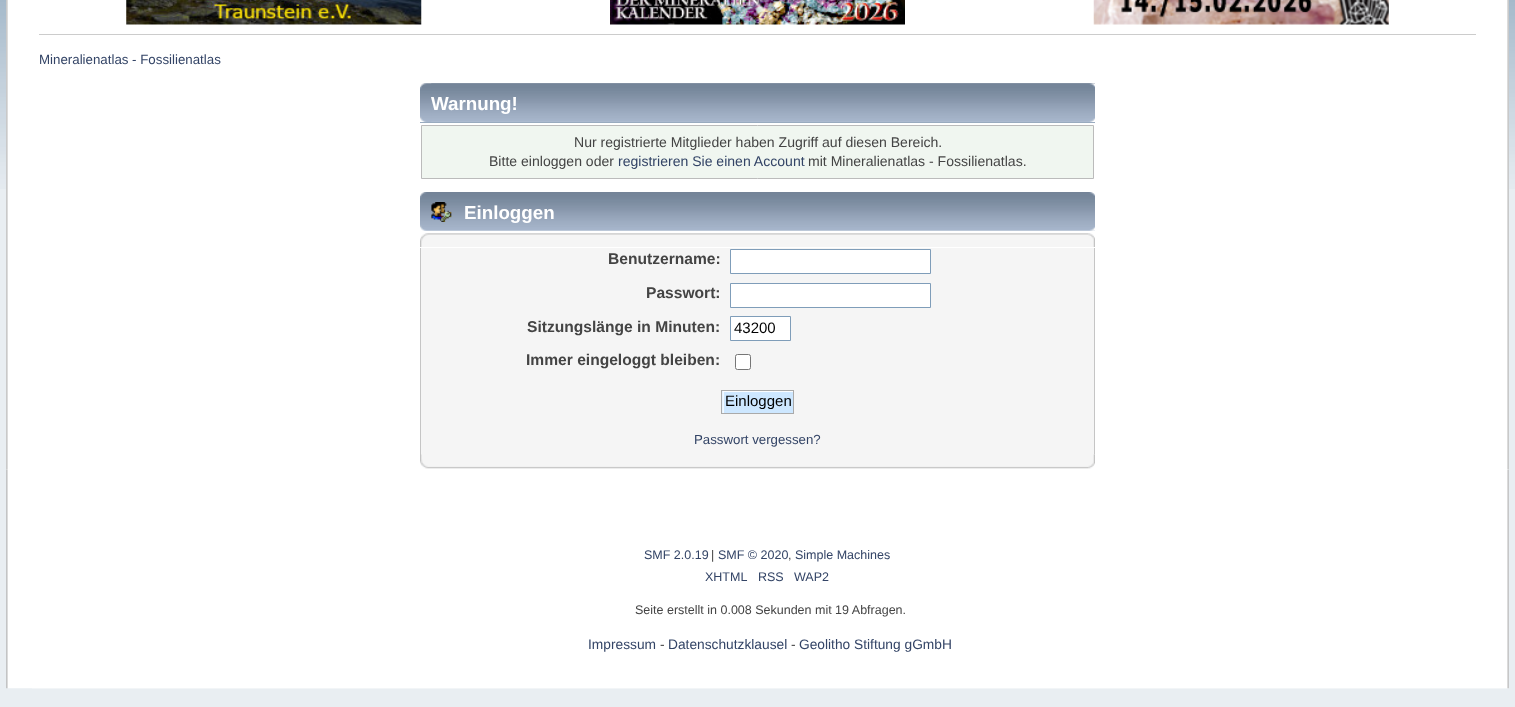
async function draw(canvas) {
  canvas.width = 1515;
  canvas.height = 707;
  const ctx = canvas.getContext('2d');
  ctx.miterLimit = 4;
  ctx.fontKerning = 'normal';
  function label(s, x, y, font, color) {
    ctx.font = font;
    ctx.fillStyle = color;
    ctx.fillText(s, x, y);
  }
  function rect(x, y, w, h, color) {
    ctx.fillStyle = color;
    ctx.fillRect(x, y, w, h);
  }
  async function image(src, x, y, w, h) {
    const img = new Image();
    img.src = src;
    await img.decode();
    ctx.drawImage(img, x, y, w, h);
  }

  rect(0, 0, 1515, 707, '#e9eef2');
  await image('assets/img1.png', 0, 0, 1515, 189);
  rect(6, 0, 1503, 470, '#fff');
  await image('assets/img2.png', 6, 0, 2, 470);
  await image('assets/img3.png', 1507, 0, 2, 470);
  await image('assets/img4.png', 126, 0, 296, 25);
  await image('assets/img5.png', 610, 0, 295, 25);
  await image('assets/img6.png', 1093, 0, 296, 25);
  rect(39, 34, 1437, 1, '#ccc');
  label('Mineralienatlas - Fossilienatlas', 39, 64, '13.3px Liberation Sans', '#346');
  rect(420, 122, 675, 1, '#99abbf');
  await image('assets/img7.png', 420, 83, 675, 39);
  await image('assets/img8.png', 431, 83, 664, 39);
  label('Warnung!', 431, 110, 'bold 18.75px Liberation Sans', '#fff');
  ctx.fillStyle = '#f0f6f0';
  ctx.beginPath();
  ctx.rect(421.5, 125.5, 672, 53);
  ctx.fill();
  ctx.strokeStyle = '#bbb';
  ctx.stroke();
  label('Nur registrierte Mitglieder haben Zugriff auf diesen Bereich.', 574, 147, '14.05px Liberation Sans', '#444');
  label('Bitte einloggen oder', 489, 166, '14.05px Liberation Sans', '#444');
  label('registrieren Sie einen Account', 618, 166, '14.05px Liberation Sans', '#346');
  label('mit Mineralienatlas - Fossilienatlas.', 808, 166, '14.05px Liberation Sans', '#444');
  await image('assets/img9.png', 420, 192, 675, 39);
  await image('assets/img10.png', 431, 192, 664, 39);
  await image('assets/img11.png', 431, 202, 21, 20);
  label('Einloggen', 464, 219, 'bold 18.75px Liberation Sans', '#fff');
  await image('assets/img12.png', 420, 233, 668, 14);
  await image('assets/img13.png', 1088, 233, 7, 14);
  rect(421, 248, 673, 207, '#f5f5f5');
  rect(1094, 248, 1, 207, '#c5c5c5');
  rect(420, 248, 1, 207, '#c5c5c5');
  label('Benutzername:', 608, 264, 'bold 15.6px Liberation Sans', '#444');
  ctx.fillStyle = '#fff';
  ctx.beginPath();
  ctx.rect(730.5, 249.5, 200, 24);
  ctx.fill();
  ctx.strokeStyle = '#7f9db9';
  ctx.stroke();
  label('Passwort:', 646, 298, 'bold 15.6px Liberation Sans', '#444');
  ctx.fillStyle = '#fff';
  ctx.beginPath();
  ctx.rect(730.5, 283.5, 200, 24);
  ctx.fill();
  ctx.stroke();
  label('Sitzungslänge in Minuten:', 527, 332, 'bold 15.6px Liberation Sans', '#444');
  ctx.fillStyle = '#fff';
  ctx.beginPath();
  ctx.rect(730.5, 316.5, 60, 24);
  ctx.fill();
  ctx.stroke();
  label('43200', 734, 333, '15px Liberation Sans', '#000');
  label('Immer eingeloggt bleiben:', 526, 365, 'bold 15.6px Liberation Sans', '#444');
  ctx.fillStyle = '#fff';
  ctx.beginPath();
  ctx.roundRect(735.5, 354.5, 15, 15, 2);
  ctx.fill();
  ctx.strokeStyle = '#767676';
  ctx.stroke();
  rect(722, 391, 1, 22, '#cde7ff');
  await image('assets/img14.png', 722, 391, 71, 22);
  ctx.strokeStyle = '#aaa';
  ctx.strokeRect(721.5, 390.5, 72, 23);
  label('Einloggen', 725, 406, '15px Liberation Sans', '#000');
  label('Passwort vergessen?', 694, 444, '13.25px Liberation Sans', '#346');
  await image('assets/img15.png', 420, 454, 675, 15);
  await image('assets/img16.png', 1088, 454, 7, 15);
  await image('assets/img17.png', 6, 469, 1503, 220);
  await image('assets/img18.png', 32, 469, 1477, 220);
  label('SMF 2.0.19', 644, 559, '12.5px Liberation Sans', '#346');
  label('|', 711, 559, '12.5px Liberation Sans', '#444');
  label('SMF © 2020', 718, 559, '12.5px Liberation Sans', '#346');
  label(',', 788, 559, '12.5px Liberation Sans', '#444');
  label('Simple Machines', 795, 559, '12.5px Liberation Sans', '#346');
  label('XHTML', 705, 581, '12.5px Liberation Sans', '#346');
  label('RSS', 758, 581, '12.5px Liberation Sans', '#346');
  label('WAP2', 794, 581, '12.5px Liberation Sans', '#346');
  label('Seite erstellt in 0.008 Sekunden mit 19 Abfragen.', 635, 614, '12.5px Liberation Sans', '#444');
  label('Impressum', 588, 649, '13.75px Liberation Sans', '#346');
  label('-', 660, 649, '13.75px Liberation Sans', '#444');
  label('Datenschutzklausel', 668, 649, '13.75px Liberation Sans', '#346');
  label('-', 791, 649, '13.75px Liberation Sans', '#444');
  label('Geolitho Stiftung gGmbH', 799, 649, '13.75px Liberation Sans', '#346');
}

draw(document.querySelector('canvas'));
